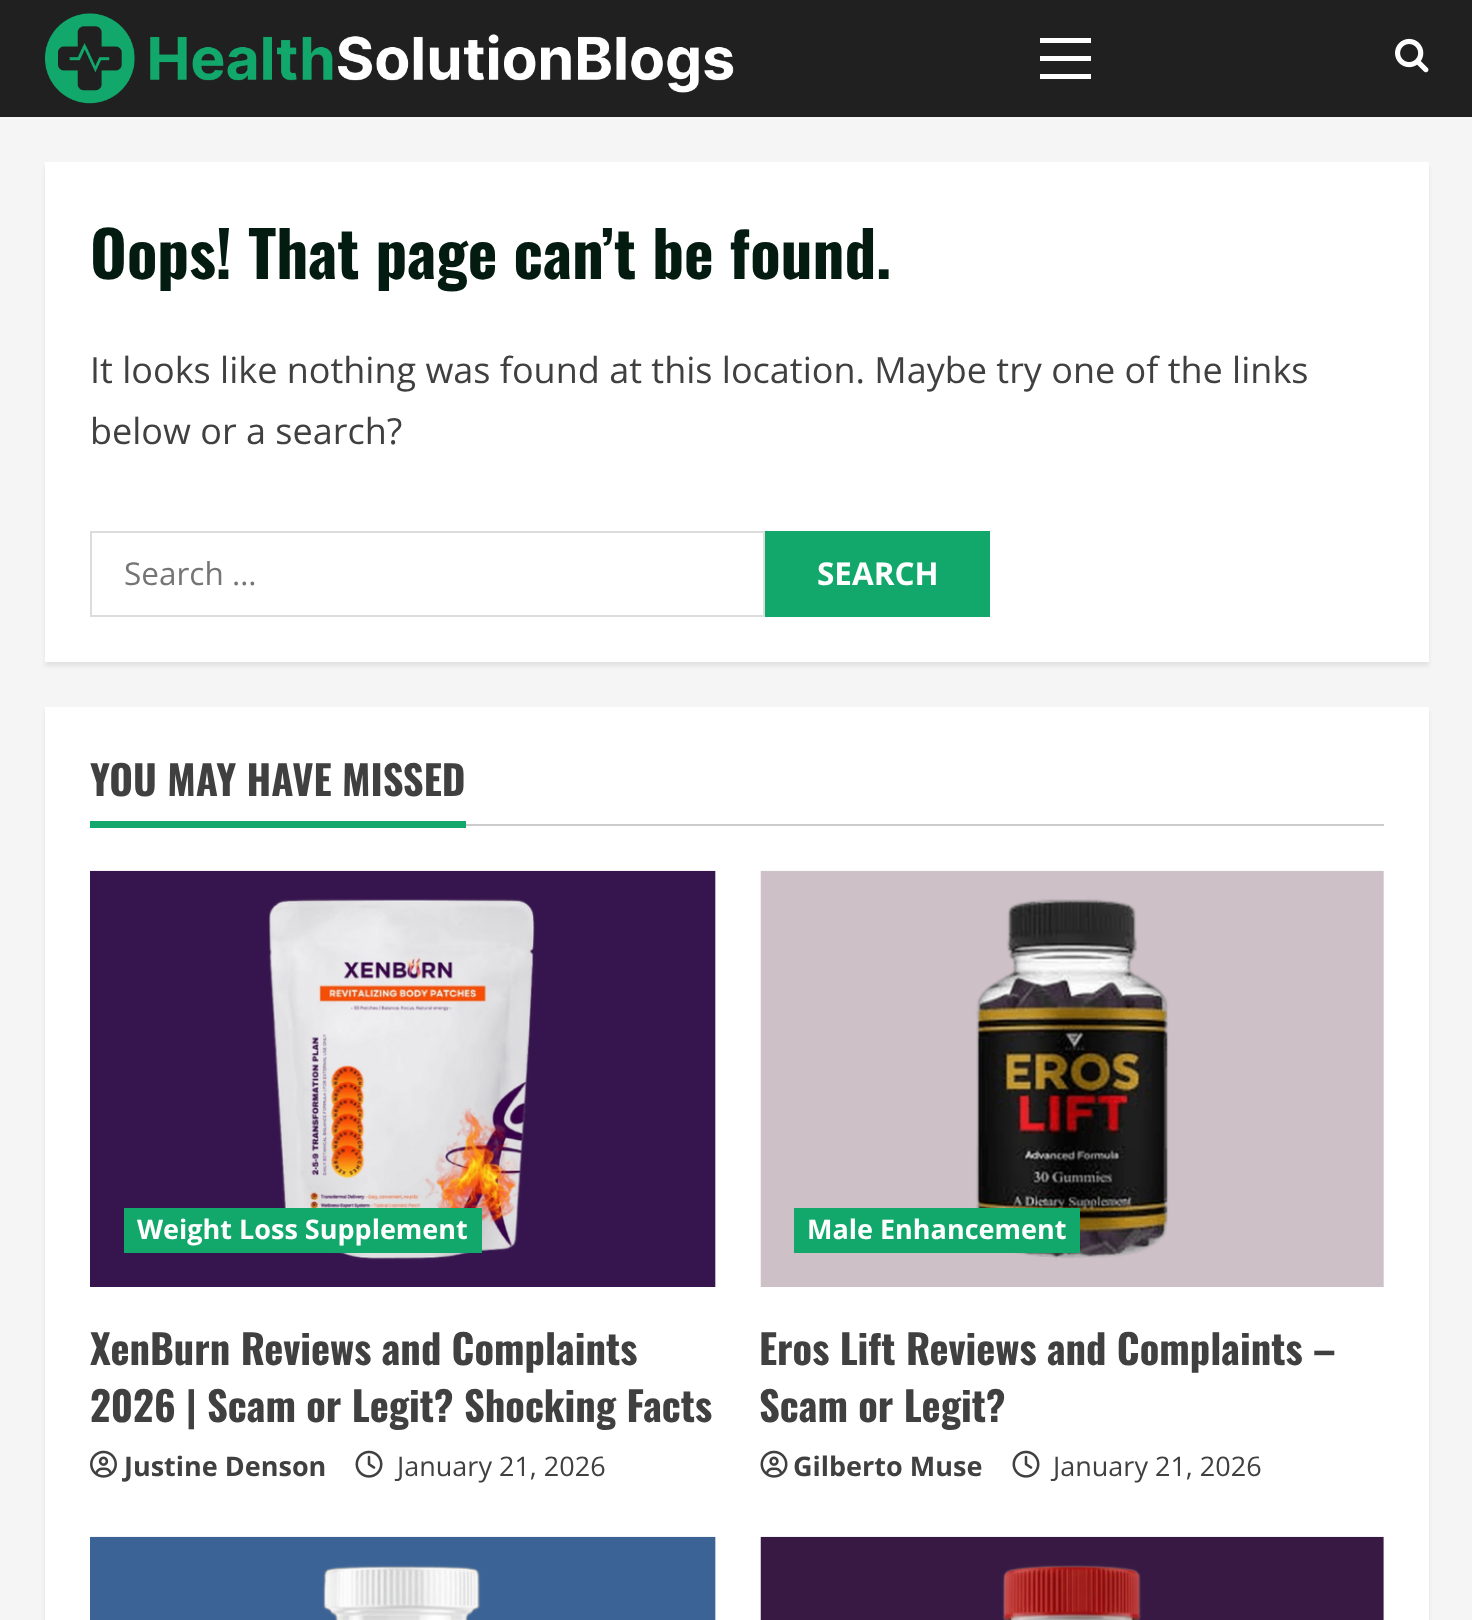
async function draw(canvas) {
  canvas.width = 1472;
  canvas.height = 1620;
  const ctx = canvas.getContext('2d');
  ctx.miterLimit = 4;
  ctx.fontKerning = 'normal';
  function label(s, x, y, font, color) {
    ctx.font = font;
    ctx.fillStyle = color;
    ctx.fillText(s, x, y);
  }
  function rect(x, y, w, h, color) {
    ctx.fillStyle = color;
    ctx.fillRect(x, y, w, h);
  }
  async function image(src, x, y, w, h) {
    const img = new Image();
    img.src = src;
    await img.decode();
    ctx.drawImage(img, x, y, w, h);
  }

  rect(0, 0, 1472, 1620, '#f5f5f5');
  rect(0, 0, 1472, 117, '#202020');
  await image('assets/img1.png', 45, 13, 689, 91);
  rect(1040, 56, 51, 5, '#fff');
  rect(1040, 38, 51, 5, '#fff');
  rect(1040, 74, 51, 5, '#fff');
  await image('assets/img2.png', 1395, 38, 34, 35);
  ctx.fillStyle = '#00000014';
  ctx.filter = 'blur(2px)';
  ctx.beginPath();
  ctx.rect(45, 167, 1384, 499);
  ctx.fill();
  ctx.filter = 'none';
  rect(45, 162, 1384, 500, '#fff');
  label('Oops! That page can’t be found.', 90, 279, 'bold 63px Oswald', '#031b11');
  label('It looks like nothing was found at this location. Maybe try one of the links', 90, 383, '36px Open Sans', '#404040');
  label('below or a search?', 90, 444, '36px Open Sans', '#404040');
  ctx.strokeStyle = '#dcdcdc';
  ctx.lineWidth = 2;
  ctx.strokeRect(91, 532, 673, 84);
  label('Search …', 124, 585, '31.5px Open Sans', '#757575');
  rect(765, 531, 225, 86, '#12a86b');
  label('SEARCH', 817, 585, 'bold 31.5px Open Sans', '#fff');
  ctx.fillStyle = '#00000014';
  ctx.filter = 'blur(2px)';
  ctx.beginPath();
  ctx.rect(45, 711, 1384, 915);
  ctx.fill();
  ctx.filter = 'none';
  rect(45, 707, 1384, 913, '#fff');
  rect(466, 824, 918, 2, '#ccc');
  label('YOU MAY HAVE MISSED', 90, 796, 'bold 40.5px Oswald', '#404040');
  rect(90, 821, 376, 7, '#12a86b');
  rect(268, 871, 448, 416, '#ececec');
  await image('assets/img3.png', 90, 870, 626, 417);
  rect(124, 1208, 358, 45, '#12a86b');
  label('Weight Loss Supplement', 137, 1239, 'bold 27px Open Sans', '#fff');
  label('XenBurn Reviews and Complaints', 90, 1365, 'bold 40.5px Oswald', '#404040');
  label('2026 | Scam or Legit? Shocking Facts', 90, 1422, 'bold 40.5px Oswald', '#404040');
  await image('assets/img4.png', 90, 1450, 27, 28);
  label('Justine Denson', 124, 1476, 'bold 27px Open Sans', '#404040');
  await image('assets/img5.png', 355, 1450, 28, 28);
  label('January 21, 2026', 397, 1476, '27px Open Sans', '#404040');
  rect(975, 871, 409, 416, '#ececec');
  await image('assets/img6.png', 760, 870, 624, 417);
  rect(794, 1208, 286, 45, '#12a86b');
  label('Male Enhancement', 807, 1239, 'bold 27px Open Sans', '#fff');
  label('Eros Lift Reviews and Complaints –', 759, 1365, 'bold 40.5px Oswald', '#404040');
  label('Scam or Legit?', 759, 1422, 'bold 40.5px Oswald', '#404040');
  await image('assets/img7.png', 760, 1450, 28, 28);
  label('Gilberto Muse', 793, 1476, 'bold 27px Open Sans', '#404040');
  await image('assets/img5.png', 1012, 1450, 28, 28);
  label('January 21, 2026', 1053, 1476, '27px Open Sans', '#404040');
  rect(323, 1537, 393, 83, '#ececec');
  await image('assets/img8.png', 90, 1536, 626, 84);
  rect(1002, 1537, 382, 83, '#ececec');
  await image('assets/img9.png', 760, 1536, 624, 84);
}

draw(document.querySelector('canvas'));
